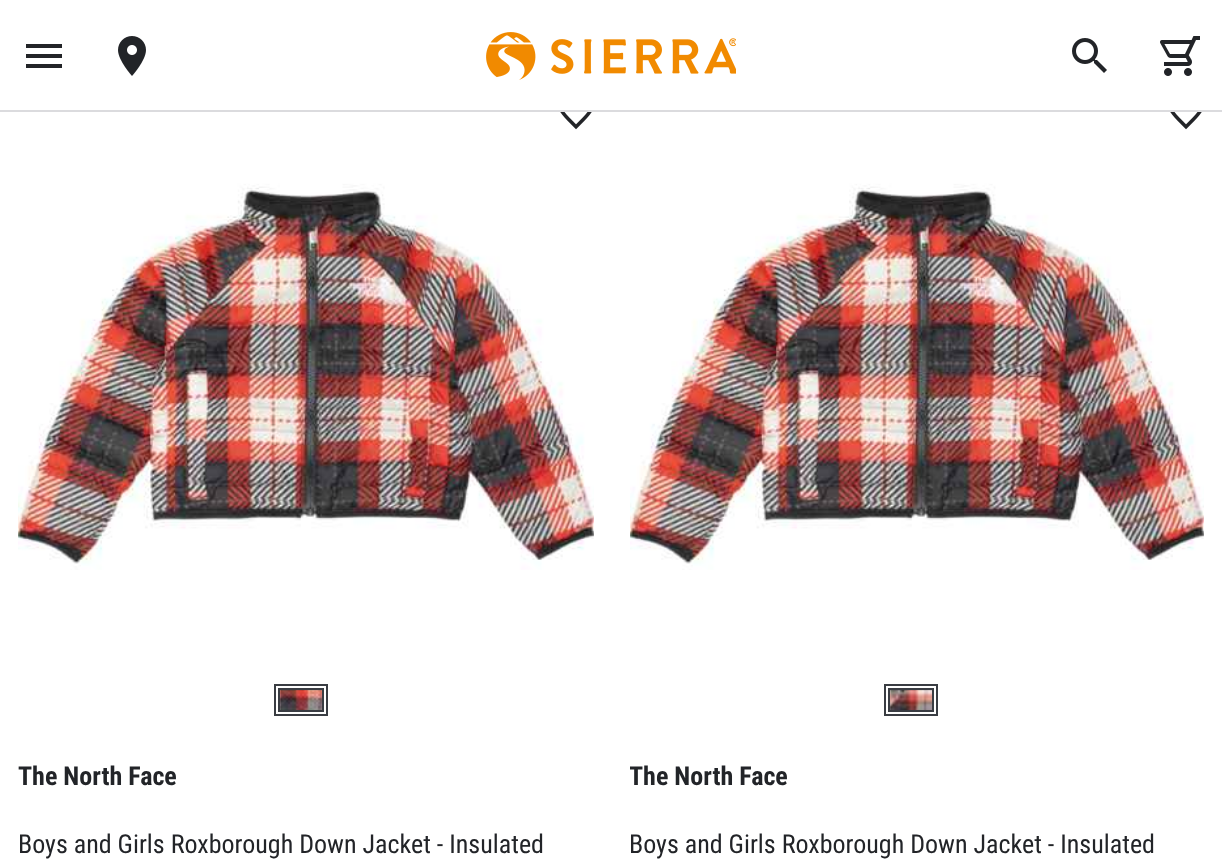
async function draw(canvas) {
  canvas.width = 1222;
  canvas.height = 861;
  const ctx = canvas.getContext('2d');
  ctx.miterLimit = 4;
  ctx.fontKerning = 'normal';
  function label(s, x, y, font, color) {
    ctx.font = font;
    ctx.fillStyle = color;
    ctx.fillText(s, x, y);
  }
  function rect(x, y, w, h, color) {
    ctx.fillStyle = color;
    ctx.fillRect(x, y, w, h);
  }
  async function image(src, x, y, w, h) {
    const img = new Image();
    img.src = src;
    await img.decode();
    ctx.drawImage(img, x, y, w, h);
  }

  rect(0, 0, 1222, 861, '#fff');
  rect(0, 110, 1222, 2, '#dbdbde');
  await image('assets/img1.png', 26, 44, 36, 24);
  await image('assets/img2.png', 118, 36, 28, 40);
  await image('assets/img3.png', 486, 32, 250, 48);
  await image('assets/img4.png', 1072, 38, 35, 35);
  await image('assets/img5.png', 1160, 36, 40, 40);
  await image('assets/img6.png', 18, 112, 576, 458);
  await image('assets/img7.png', 560, 112, 32, 18);
  ctx.strokeStyle = '#3a3d43';
  ctx.lineWidth = 2;
  ctx.strokeRect(275, 685, 52, 30);
  await image('assets/img8.png', 280, 690, 42, 20);
  ctx.strokeRect(279, 689, 44, 22);
  label('The North Face', 18, 785, 'bold 26px Roboto Condensed', '#222428');
  label('Boys and Girls Roxborough Down Jacket - Insulated', 18, 853, '26px Roboto Condensed', '#222428');
  await image('assets/img9.png', 630, 112, 574, 458);
  await image('assets/img7.png', 1170, 112, 32, 18);
  ctx.strokeRect(885, 685, 52, 30);
  await image('assets/img10.png', 890, 690, 42, 20);
  ctx.strokeRect(889, 689, 44, 22);
  ctx.save();
  ctx.beginPath();
  ctx.rect(630, 740, 574, 72);
  ctx.clip();
  label('The North Face', 629, 785, 'bold 26px Roboto Condensed', '#222428');
  ctx.restore();
  label('Boys and Girls Roxborough Down Jacket - Insulated', 629, 853, '26px Roboto Condensed', '#222428');
}

draw(document.querySelector('canvas'));
